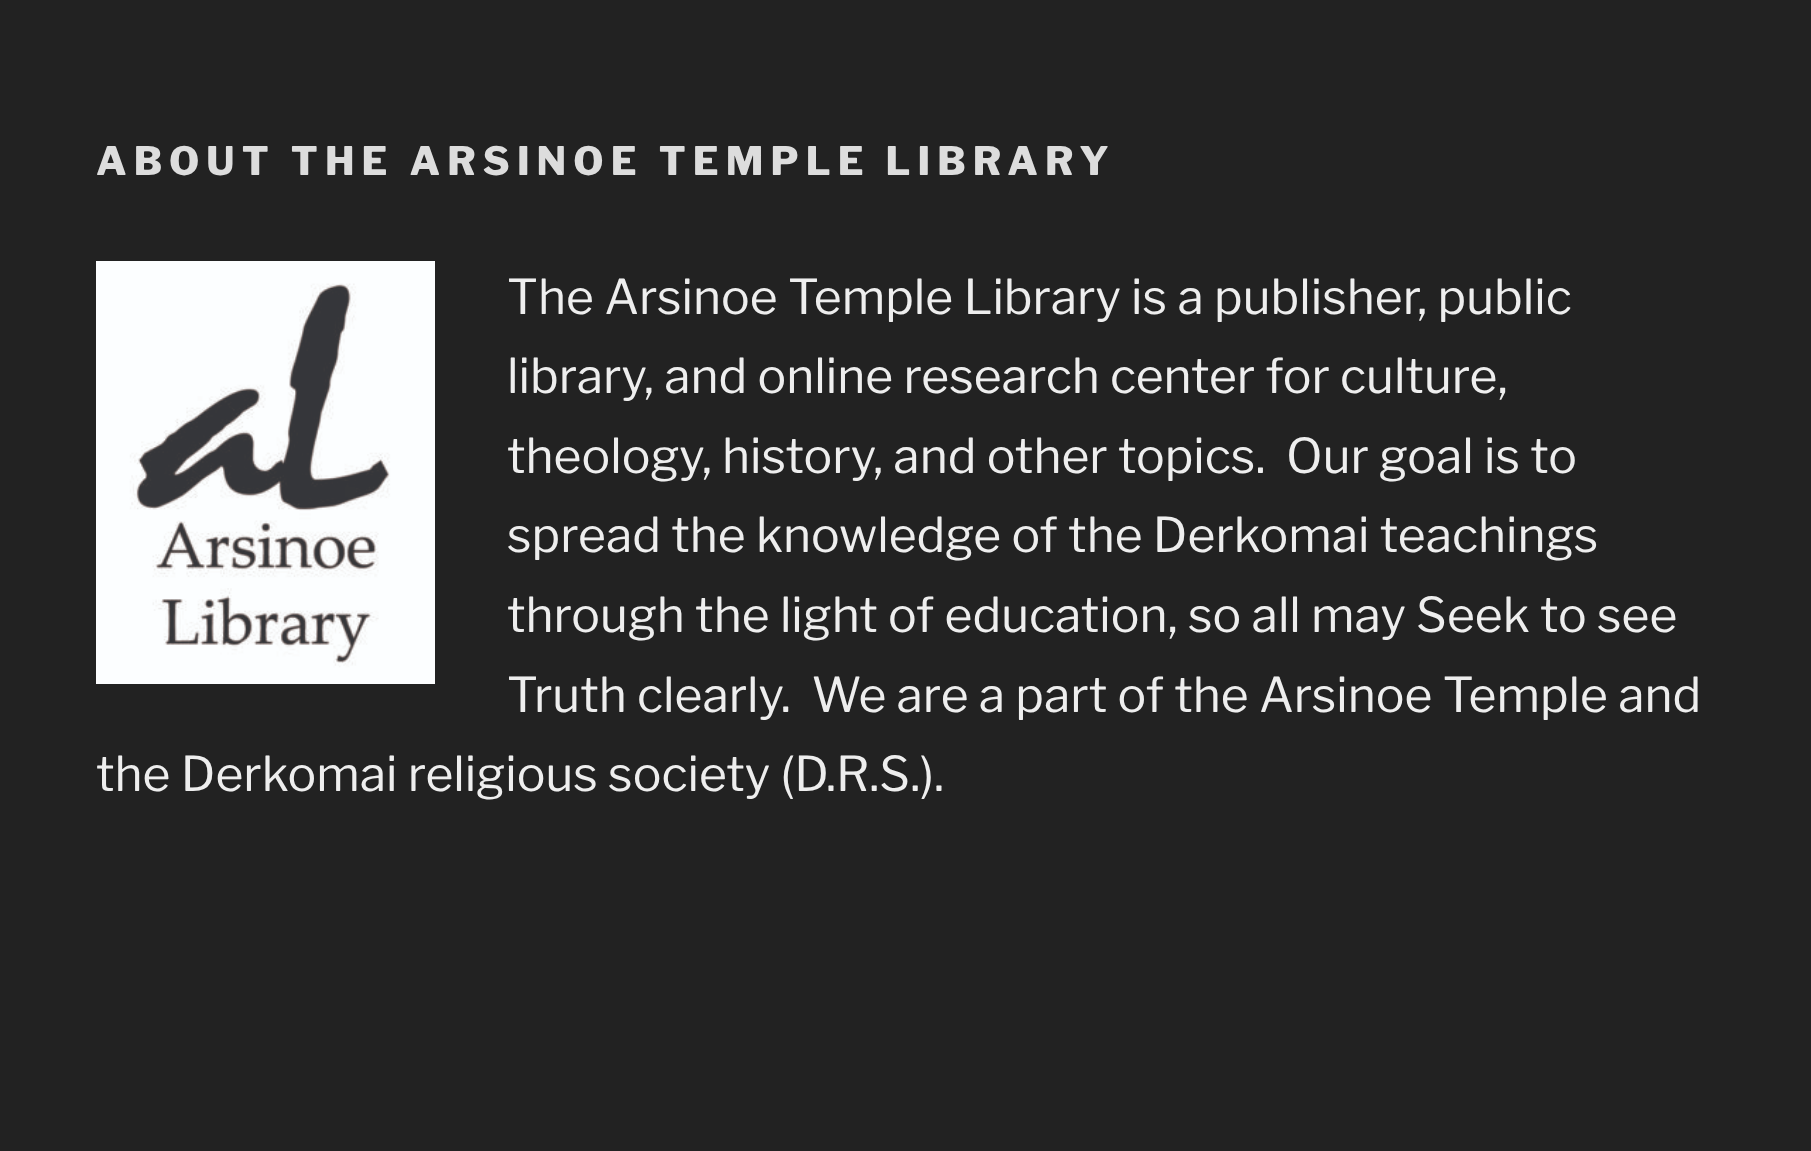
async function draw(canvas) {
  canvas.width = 1811;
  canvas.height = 1151;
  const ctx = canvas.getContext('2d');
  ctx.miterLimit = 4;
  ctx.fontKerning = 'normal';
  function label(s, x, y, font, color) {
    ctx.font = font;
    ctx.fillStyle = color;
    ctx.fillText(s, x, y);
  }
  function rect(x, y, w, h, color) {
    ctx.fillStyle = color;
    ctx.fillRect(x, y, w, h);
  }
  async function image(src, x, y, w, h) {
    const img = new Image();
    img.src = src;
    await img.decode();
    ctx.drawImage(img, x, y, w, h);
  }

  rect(0, 0, 1811, 1151, '#222');
  ctx.letterSpacing = '7.1px';
  label('ABOUT THE ARSINOE TEMPLE LIBRARY', 96, 175, '100 39px Libre Franklin', '#ddd');
  await image('assets/img1.png', 96, 261, 339, 423);
  ctx.letterSpacing = '0px';
  label('The Arsinoe Temple Library is a publisher, public', 507, 314, '100 48px "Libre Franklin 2"', '#eee');
  label('library, and online research center for culture,', 507, 393, '100 48px "Libre Franklin 2"', '#eee');
  label('theology, history, and other topics.  Our goal is to', 507, 473, '100 48px "Libre Franklin 2"', '#eee');
  label('spread the knowledge of the Derkomai teachings', 507, 552, '100 48px "Libre Franklin 2"', '#eee');
  label('through the light of education, so all may Seek to see', 507, 632, '100 48px "Libre Franklin 2"', '#eee');
  label('Truth clearly.  We are a part of the Arsinoe Temple and', 507, 712, '100 48px "Libre Franklin 2"', '#eee');
  label('the Derkomai religious society (D.R.S.).', 96, 791, '100 48px "Libre Franklin 2"', '#eee');
}

draw(document.querySelector('canvas'));
